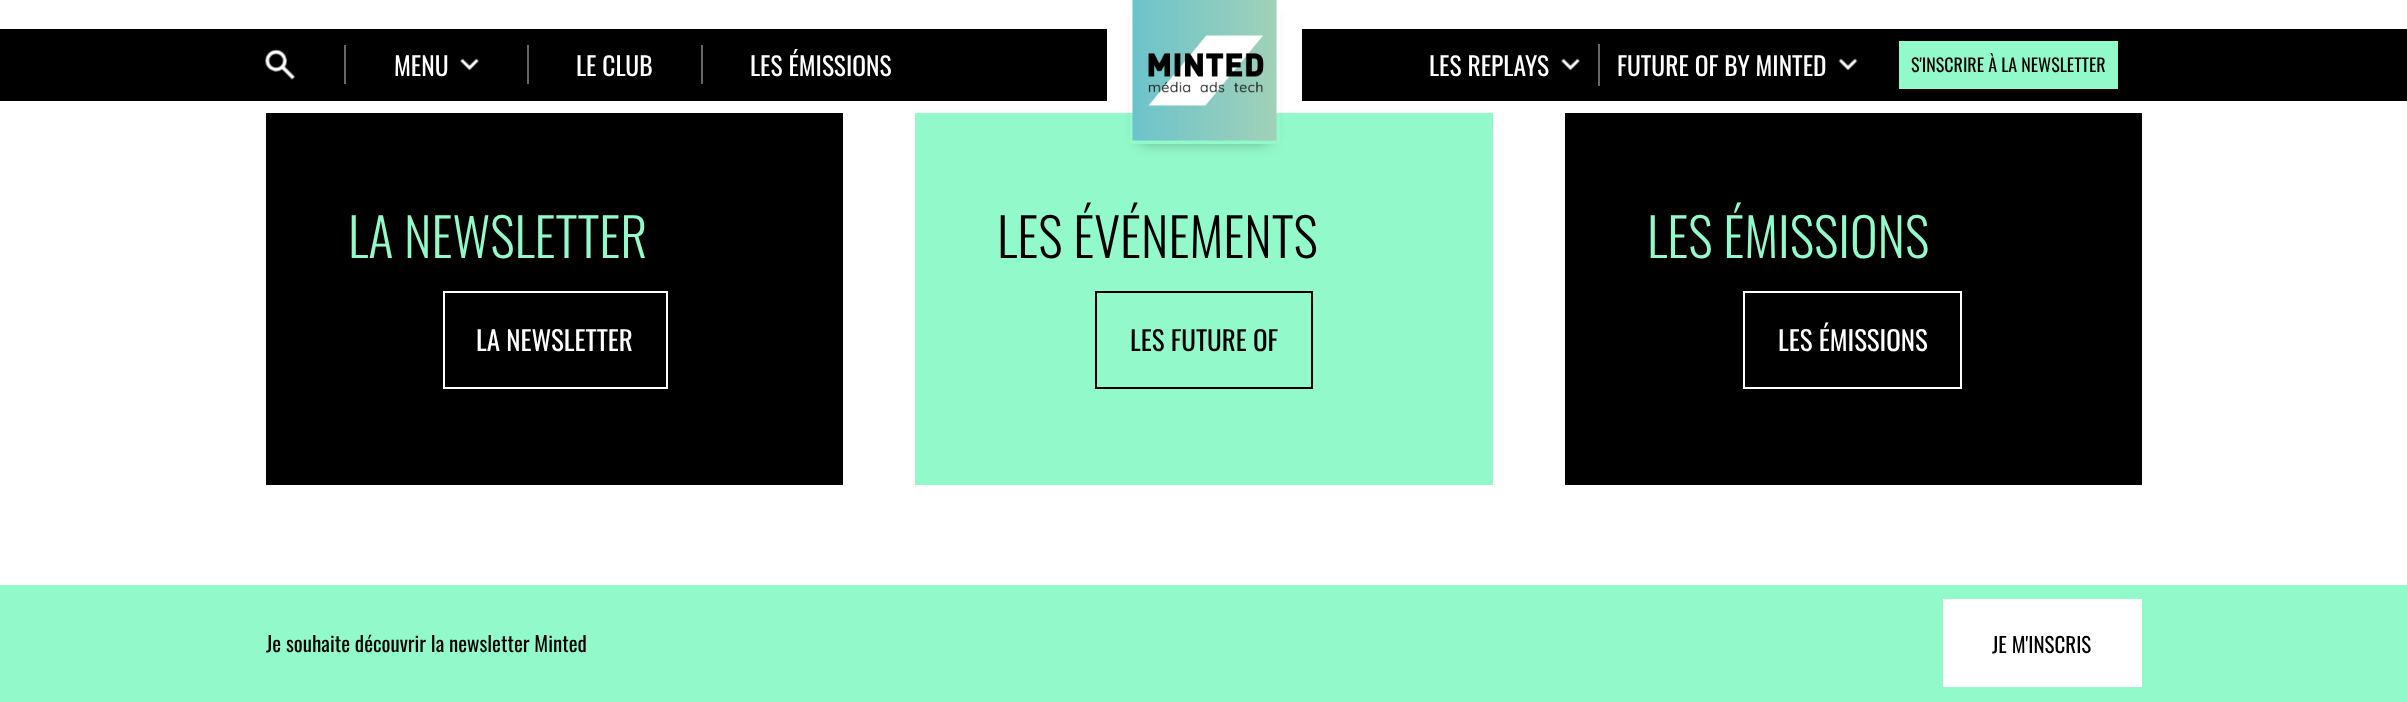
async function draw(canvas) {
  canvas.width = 2407;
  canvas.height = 702;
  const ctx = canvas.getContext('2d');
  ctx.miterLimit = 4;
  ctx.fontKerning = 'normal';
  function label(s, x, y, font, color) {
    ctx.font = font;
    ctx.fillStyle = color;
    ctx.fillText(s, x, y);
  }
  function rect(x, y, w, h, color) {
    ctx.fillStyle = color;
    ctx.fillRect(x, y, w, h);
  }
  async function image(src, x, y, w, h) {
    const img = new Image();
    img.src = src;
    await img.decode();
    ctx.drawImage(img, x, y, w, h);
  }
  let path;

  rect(0, 0, 2407, 702, '#fff');
  rect(0, 29, 2407, 72, '#000');
  await image('assets/img1.png', 265, 49, 30, 31);
  rect(344, 45, 2, 39, '#666');
  label('MENU', 394, 76, '25.5px Oswald', '#fff');
  await image('assets/img2.png', 460, 58, 19, 13);
  rect(527, 45, 2, 39, '#666');
  label('LE CLUB', 576, 76, '25.5px Oswald', '#fff');
  rect(701, 45, 2, 39, '#666');
  label('LES ÉMISSIONS', 750, 76, '25.5px Oswald', '#fff');
  rect(1107, 29, 195, 72, '#fff');
  rect(915, 113, 578, 372, '#92f9ca');
  ctx.save();
  path = new Path2D('M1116 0H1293V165H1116ZM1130-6H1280V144H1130Z');
  ctx.clip(path, 'evenodd');
  ctx.fillStyle = '#00000066';
  ctx.filter = 'blur(7.5px)';
  ctx.beginPath();
  ctx.rect(1140, 12, 129, 129);
  ctx.fill();
  ctx.filter = 'none';
  ctx.restore();
  await image('assets/img3.png', 1132, 0, 145, 141);
  label('LES REPLAYS', 1429, 76, '25.5px Oswald', '#fff');
  await image('assets/img2.png', 1561, 58, 19, 13);
  rect(1598, 44, 2, 42, '#666');
  label('FUTURE OF BY MINTED', 1617, 76, '25.5px Oswald', '#fff');
  await image('assets/img4.png', 1838, 58, 20, 13);
  rect(1899, 41, 219, 48, '#92f9ca');
  label('S\'INSCRIRE À LA NEWSLETTER', 1911, 72, '18px Oswald', '#000');
  rect(266, 113, 577, 372, '#000');
  label('LA NEWSLETTER', 348, 258, '300 52.75px Oswald', '#92f9ca');
  ctx.strokeStyle = '#fff';
  ctx.lineWidth = 2;
  ctx.strokeRect(444, 292, 223, 96);
  label('LA NEWSLETTER', 476, 351, '27px Oswald', '#fff');
  label('LES ÉVÉNEMENTS', 997, 258, '300 52.75px Oswald', '#000');
  ctx.strokeStyle = '#000';
  ctx.strokeRect(1096, 292, 216, 96);
  label('LES FUTURE OF', 1130, 351, '27px Oswald', '#000');
  rect(1565, 113, 577, 372, '#000');
  label('LES ÉMISSIONS', 1647, 258, '300 52.75px Oswald', '#92f9ca');
  ctx.strokeStyle = '#fff';
  ctx.strokeRect(1744, 292, 217, 96);
  label('LES ÉMISSIONS', 1778, 351, '27px Oswald', '#fff');
  rect(0, 585, 2407, 117, '#92f9ca');
  label('Je souhaite découvrir la newsletter Minted', 266, 652, '21px Oswald', '#000');
  rect(1943, 599, 199, 88, '#fff');
  label('JE M\'INSCRIS', 1992, 653, '21px Oswald', '#000');
}

draw(document.querySelector('canvas'));
